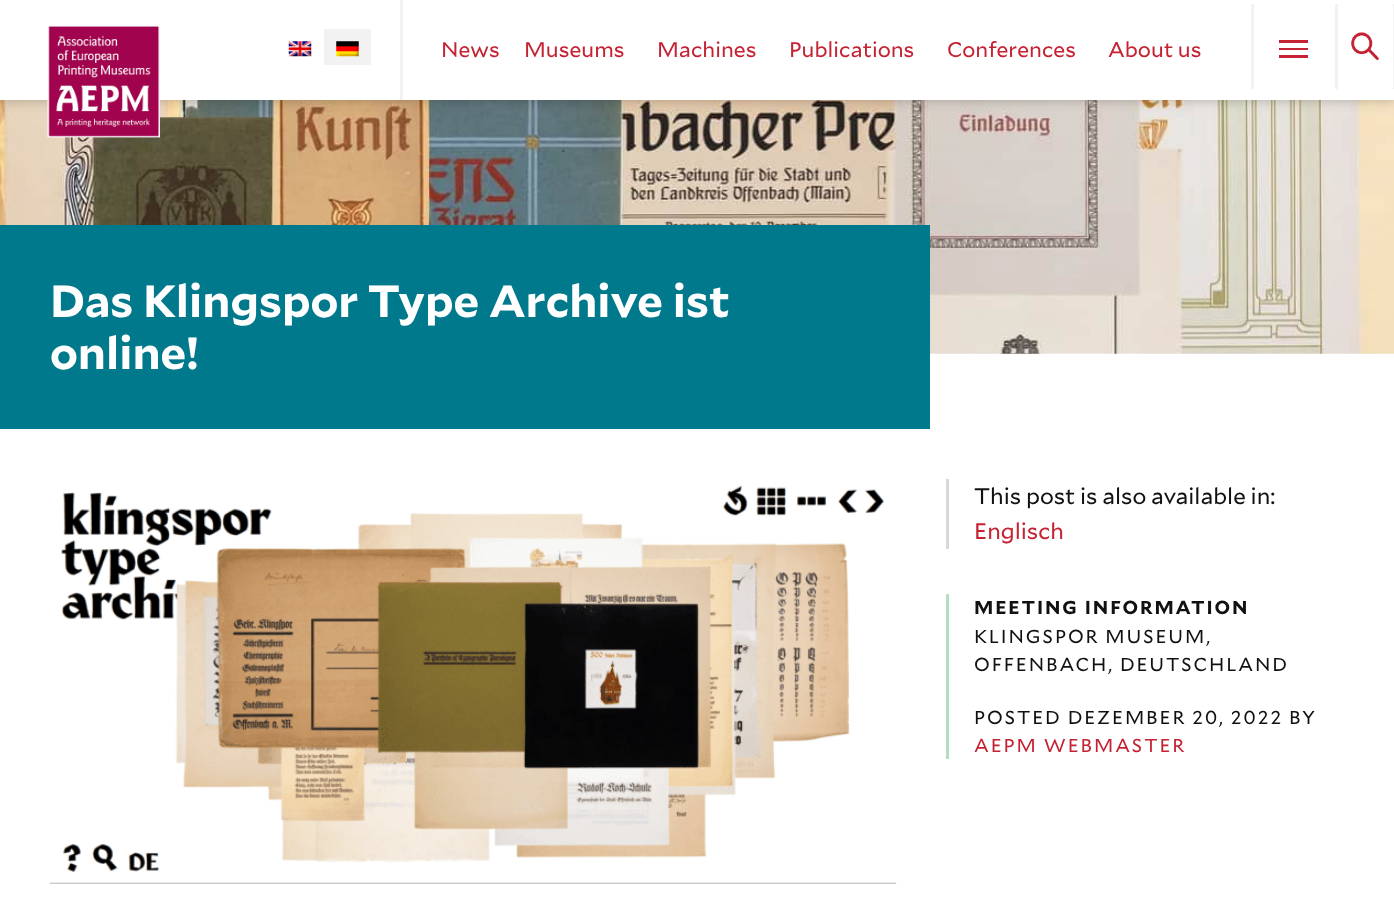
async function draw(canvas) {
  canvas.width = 1394;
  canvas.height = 914;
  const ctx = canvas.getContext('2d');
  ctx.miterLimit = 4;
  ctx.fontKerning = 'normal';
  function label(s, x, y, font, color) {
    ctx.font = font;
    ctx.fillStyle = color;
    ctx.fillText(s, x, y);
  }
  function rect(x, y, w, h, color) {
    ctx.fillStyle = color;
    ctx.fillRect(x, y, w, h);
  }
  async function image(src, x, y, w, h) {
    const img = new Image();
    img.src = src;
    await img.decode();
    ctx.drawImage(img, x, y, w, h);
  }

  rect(0, 0, 1394, 914, '#fff');
  await image('assets/img5.png', 0, 100, 1394, 254);
  ctx.fillStyle = '#00000040';
  ctx.filter = 'blur(6px)';
  ctx.beginPath();
  ctx.rect(0, 0, 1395, 100);
  ctx.fill();
  ctx.filter = 'none';
  rect(0, 0, 1394, 100, '#fff');
  await image('assets/img1.png', 47, 25, 113, 113);
  await image('assets/img2.png', 288, 41, 24, 16);
  rect(324, 29, 47, 36, '#f2f2f2');
  await image('assets/img3.png', 336, 41, 23, 16);
  rect(400, 0, 3, 100, '#f2f2f2');
  label('News', 441, 57, '21.25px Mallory', '#c52233');
  label('Museums', 524, 57, '21.25px Mallory', '#c52233');
  label('Machines', 657, 57, '21.25px Mallory', '#c52233');
  label('Publications', 789, 57, '21.25px Mallory', '#c52233');
  label('Conferences', 947, 57, '21.25px Mallory', '#c52233');
  label('About us', 1108, 57, '21.25px Mallory', '#c52233');
  rect(1251, 4, 3, 85, '#f2f2f2');
  rect(1279, 48, 29, 2, '#c52233');
  rect(1279, 40, 29, 3, '#c52233');
  rect(1279, 55, 29, 3, '#c52233');
  await image('assets/img4.png', 1351, 32, 28, 28);
  rect(1393, 4, 1, 85, '#f2f2f2');
  rect(1335, 4, 3, 85, '#f2f2f2');
  rect(0, 225, 930, 204, '#00798c');
  label('Das Klingspor Type Archive ist', 50, 317, 'bold 45px Mallory', '#fff');
  label('online!', 50, 369, 'bold 45px Mallory', '#fff');
  await image('assets/img6.png', 50, 485, 847, 399);
  rect(946, 479, 3, 70, '#d8d8d8');
  label('This post is also available in:', 974, 504, '22.5px Mallory', '#111');
  label('Englisch', 974, 539, '22.5px Mallory', '#c52233');
  rect(946, 594, 3, 165, '#b3dec1');
  ctx.letterSpacing = '1.9px';
  label('MEETING INFORMATION', 974, 614, 'bold 18.75px Mallory', '#111');
  label('KLINGSPOR MUSEUM,', 974, 643, '18.75px Mallory', '#111');
  label('OFFENBACH, DEUTSCHLAND', 974, 671, '18.75px Mallory', '#111');
  label('POSTED DEZEMBER 20, 2022 BY', 974, 724, '18.75px Mallory', '#111');
  label('AEPM WEBMASTER', 974, 752, '18.75px Mallory', '#c52233');
}

draw(document.querySelector('canvas'));
